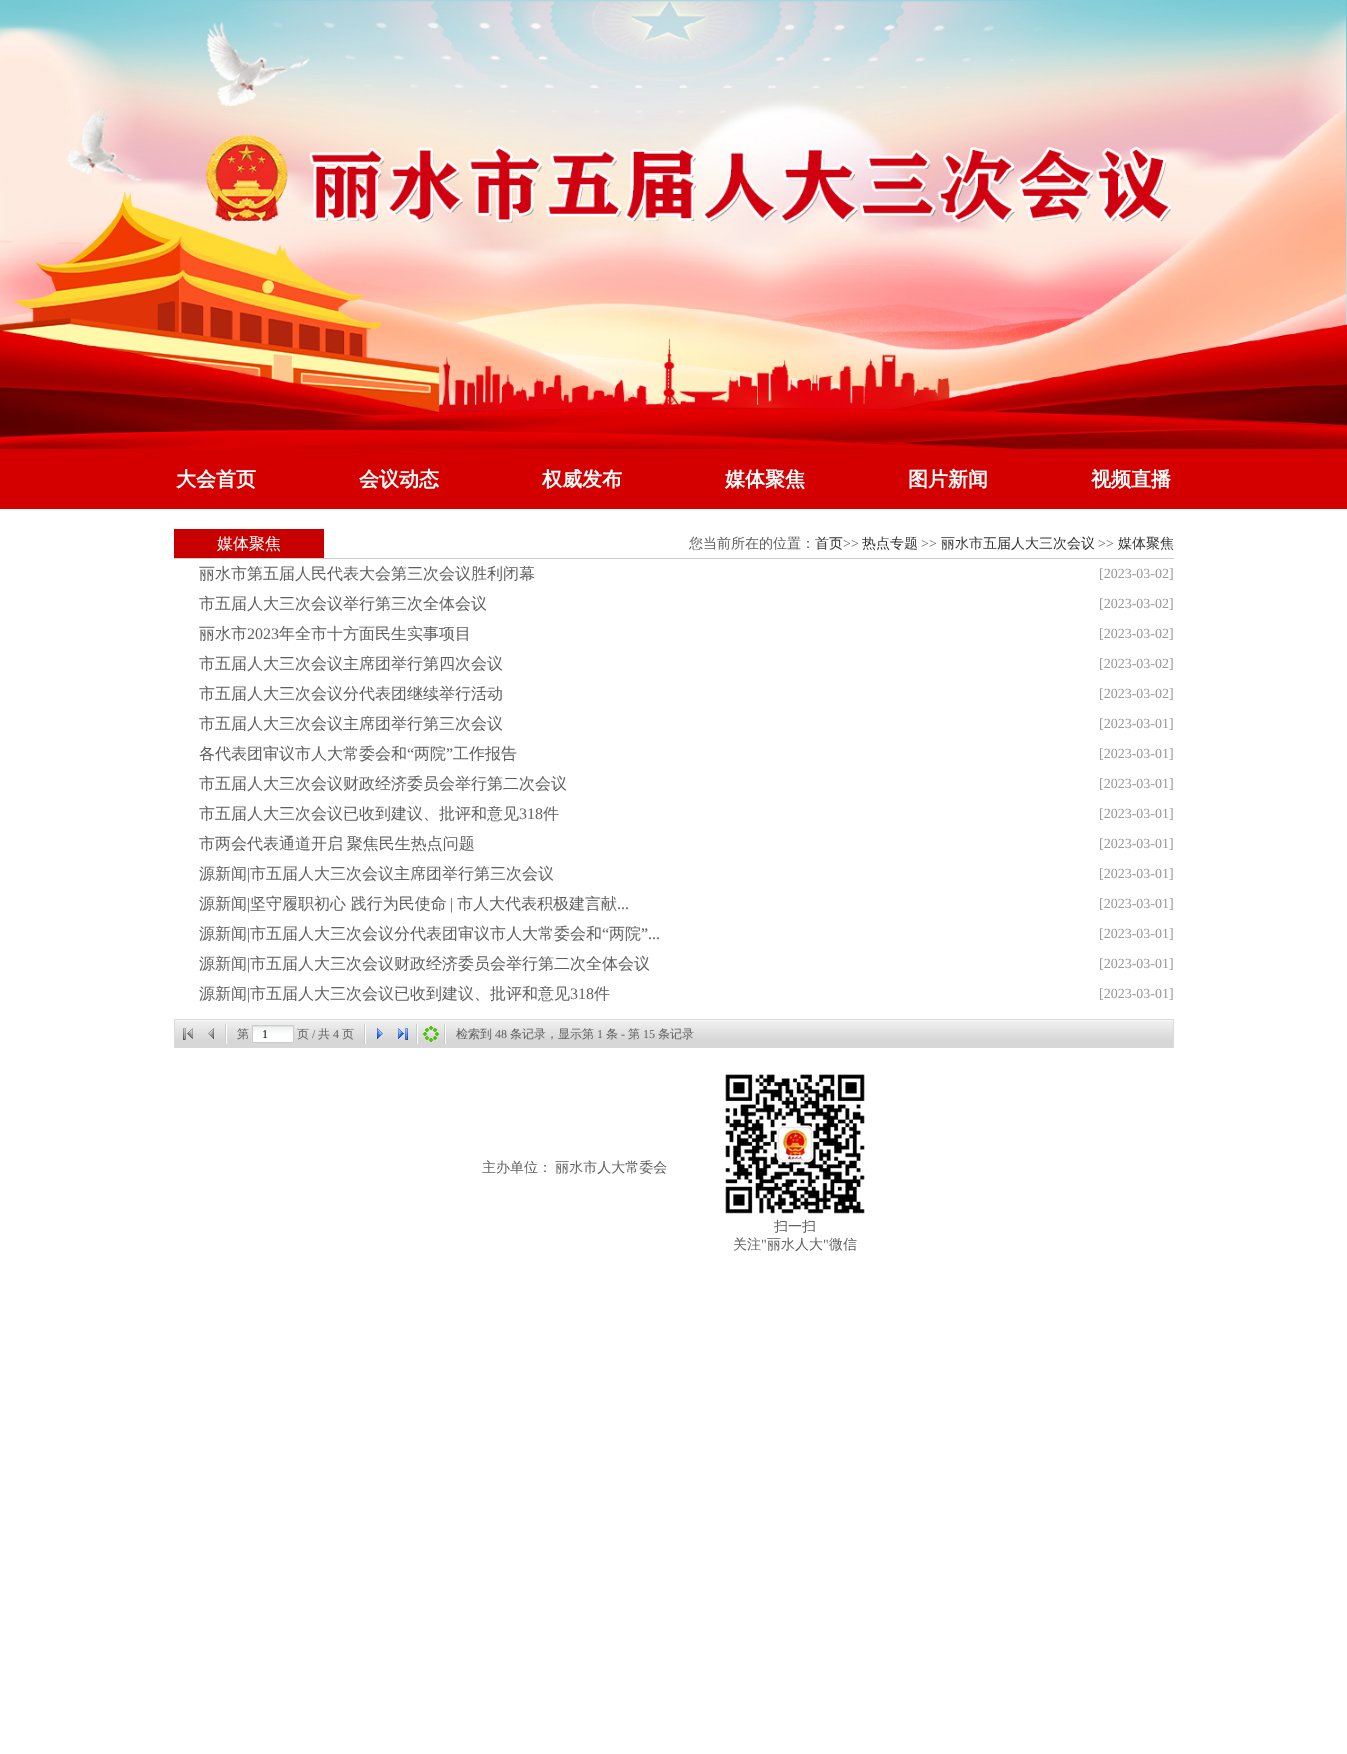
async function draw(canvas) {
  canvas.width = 1347;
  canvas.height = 1754;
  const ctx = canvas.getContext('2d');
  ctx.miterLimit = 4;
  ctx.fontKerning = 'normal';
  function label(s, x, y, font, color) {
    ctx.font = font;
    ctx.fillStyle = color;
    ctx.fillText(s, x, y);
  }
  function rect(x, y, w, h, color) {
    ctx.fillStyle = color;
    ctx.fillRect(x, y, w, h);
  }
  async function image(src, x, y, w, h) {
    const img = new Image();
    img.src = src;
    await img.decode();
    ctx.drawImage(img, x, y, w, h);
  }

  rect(0, 0, 1347, 1754, '#fff');
  await image('assets/img1.png', 0, 0, 1347, 449);
  rect(0, 449, 1347, 60, '#d40000');
  label('大会首页', 176, 486, 'bold 20px WenQuanYi Zen Hei', '#fff');
  label('会议动态', 359, 486, 'bold 20px WenQuanYi Zen Hei', '#fff');
  label('权威发布', 542, 486, 'bold 20px WenQuanYi Zen Hei', '#fff');
  label('媒体聚焦', 725, 486, 'bold 20px WenQuanYi Zen Hei', '#fff');
  label('图片新闻', 908, 486, 'bold 20px WenQuanYi Zen Hei', '#fff');
  label('视频直播', 1091, 486, 'bold 20px WenQuanYi Zen Hei', '#fff');
  rect(174, 558, 1000, 1, '#ccc');
  rect(174, 529, 150, 29, '#c80000');
  label('媒体聚焦', 217, 549, '500 16px WenQuanYi Zen Hei', '#fff');
  label('您当前所在的位置：', 689, 548, '500 14px WenQuanYi Zen Hei', '#606060');
  label('首页', 815, 548, '500 14px WenQuanYi Zen Hei', '#333');
  label('>>', 843, 548, '14px Liberation Serif', '#606060');
  label('热点专题', 862, 548, '500 14px WenQuanYi Zen Hei', '#333');
  label('>>', 921, 548, '14px Liberation Serif', '#606060');
  label('丽水市五届人大三次会议', 941, 548, '500 14px WenQuanYi Zen Hei', '#333');
  label('>>', 1098, 548, '14px Liberation Serif', '#606060');
  label('媒体聚焦', 1118, 548, '500 14px WenQuanYi Zen Hei', '#333');
  label('丽水市第五届人民代表大会第三次会议胜利闭幕', 199, 579, '500 16px WenQuanYi Zen Hei', '#606060');
  label('[2023-03-02]', 1099, 578, '14px Liberation Serif', '#999898');
  label('市五届人大三次会议举行第三次全体会议', 199, 609, '500 16px WenQuanYi Zen Hei', '#606060');
  label('[2023-03-02]', 1099, 608, '14px Liberation Serif', '#999898');
  label('丽水市', 199, 639, '500 16px WenQuanYi Zen Hei', '#606060');
  label('2023', 247, 639, '16px Liberation Serif', '#606060');
  label('年全市十方面民生实事项目', 279, 639, '500 16px WenQuanYi Zen Hei', '#606060');
  label('[2023-03-02]', 1099, 638, '14px Liberation Serif', '#999898');
  label('市五届人大三次会议主席团举行第四次会议', 199, 669, '500 16px WenQuanYi Zen Hei', '#606060');
  label('[2023-03-02]', 1099, 668, '14px Liberation Serif', '#999898');
  label('市五届人大三次会议分代表团继续举行活动', 199, 699, '500 16px WenQuanYi Zen Hei', '#606060');
  label('[2023-03-02]', 1099, 698, '14px Liberation Serif', '#999898');
  label('市五届人大三次会议主席团举行第三次会议', 199, 729, '500 16px WenQuanYi Zen Hei', '#606060');
  label('[2023-03-01]', 1099, 728, '14px Liberation Serif', '#999898');
  label('各代表团审议市人大常委会和', 199, 759, '500 16px WenQuanYi Zen Hei', '#606060');
  label('“', 407, 759, '16px Liberation Serif', '#606060');
  label('两院', 414, 759, '500 16px WenQuanYi Zen Hei', '#606060');
  label('”', 446, 759, '16px Liberation Serif', '#606060');
  label('工作报告', 453, 759, '500 16px WenQuanYi Zen Hei', '#606060');
  label('[2023-03-01]', 1099, 758, '14px Liberation Serif', '#999898');
  label('市五届人大三次会议财政经济委员会举行第二次会议', 199, 789, '500 16px WenQuanYi Zen Hei', '#606060');
  label('[2023-03-01]', 1099, 788, '14px Liberation Serif', '#999898');
  label('市五届人大三次会议已收到建议、批评和意见', 199, 819, '500 16px WenQuanYi Zen Hei', '#606060');
  label('318', 519, 819, '16px Liberation Serif', '#606060');
  label('件', 543, 819, '500 16px WenQuanYi Zen Hei', '#606060');
  label('[2023-03-01]', 1099, 818, '14px Liberation Serif', '#999898');
  ctx.wordSpacing = '-1px';
  label('市两会代表通道开启 聚焦民生热点问题', 199, 849, '500 16px WenQuanYi Zen Hei', '#606060');
  ctx.wordSpacing = '0px';
  label('[2023-03-01]', 1099, 848, '14px Liberation Serif', '#999898');
  label('源新闻', 199, 879, '500 16px WenQuanYi Zen Hei', '#606060');
  label('|', 247, 879, '16px Liberation Serif', '#606060');
  label('市五届人大三次会议主席团举行第三次会议', 250, 879, '500 16px WenQuanYi Zen Hei', '#606060');
  label('[2023-03-01]', 1099, 878, '14px Liberation Serif', '#999898');
  label('源新闻', 199, 909, '500 16px WenQuanYi Zen Hei', '#606060');
  label('|', 247, 909, '16px Liberation Serif', '#606060');
  label('坚守履职初心 践行为民使命', 250, 909, '500 16px WenQuanYi Zen Hei', '#606060');
  label('|', 450, 909, '16px Liberation Serif', '#606060');
  label('市人大代表积极建言献', 457, 909, '500 16px WenQuanYi Zen Hei', '#606060');
  label('...', 617, 909, '16px Liberation Serif', '#606060');
  label('[2023-03-01]', 1099, 908, '14px Liberation Serif', '#999898');
  label('源新闻', 199, 939, '500 16px WenQuanYi Zen Hei', '#606060');
  label('|', 247, 939, '16px Liberation Serif', '#606060');
  label('市五届人大三次会议分代表团审议市人大常委会和', 250, 939, '500 16px WenQuanYi Zen Hei', '#606060');
  label('“', 602, 939, '16px Liberation Serif', '#606060');
  label('两院', 609, 939, '500 16px WenQuanYi Zen Hei', '#606060');
  label('”...', 641, 939, '16px Liberation Serif', '#606060');
  label('[2023-03-01]', 1099, 938, '14px Liberation Serif', '#999898');
  label('源新闻', 199, 969, '500 16px WenQuanYi Zen Hei', '#606060');
  label('|', 247, 969, '16px Liberation Serif', '#606060');
  label('市五届人大三次会议财政经济委员会举行第二次全体会议', 250, 969, '500 16px WenQuanYi Zen Hei', '#606060');
  label('[2023-03-01]', 1099, 968, '14px Liberation Serif', '#999898');
  label('源新闻', 199, 999, '500 16px WenQuanYi Zen Hei', '#606060');
  label('|', 247, 999, '16px Liberation Serif', '#606060');
  label('市五届人大三次会议已收到建议、批评和意见', 250, 999, '500 16px WenQuanYi Zen Hei', '#606060');
  label('318', 570, 999, '16px Liberation Serif', '#606060');
  label('件', 594, 999, '500 16px WenQuanYi Zen Hei', '#606060');
  label('[2023-03-01]', 1099, 998, '14px Liberation Serif', '#999898');
  await image('assets/img2.png', 175, 1020, 998, 28);
  rect(174, 1019, 1000, 1, '#dadada');
  rect(1173, 1019, 1, 29, '#dadada');
  rect(174, 1019, 1, 29, '#dadada');
  await image('assets/img3.png', 183, 1028, 10, 12);
  await image('assets/img4.png', 208, 1028, 6, 11);
  await image('assets/img5.png', 225, 1024, 2, 20);
  label('第', 237, 1038, '500 12px WenQuanYi Zen Hei', '#606060');
  await image('assets/img6.png', 253, 1026, 40, 16);
  ctx.strokeStyle = '#ccc';
  ctx.strokeRect(252.5, 1025.5, 41, 17);
  label('1', 262, 1038, '12px Liberation Serif', '#000');
  label('页', 297, 1038, '500 12px WenQuanYi Zen Hei', '#606060');
  label('/', 312, 1038, '12px Liberation Serif', '#606060');
  label('共', 318, 1038, '500 12px WenQuanYi Zen Hei', '#606060');
  label('4', 333, 1038, '12px Liberation Serif', '#606060');
  label('页', 342, 1038, '500 12px WenQuanYi Zen Hei', '#606060');
  await image('assets/img5.png', 364, 1024, 2, 20);
  await image('assets/img7.png', 377, 1028, 6, 11);
  await image('assets/img8.png', 398, 1028, 10, 12);
  await image('assets/img5.png', 416, 1024, 2, 20);
  await image('assets/img9.png', 423, 1026, 16, 16);
  await image('assets/img5.png', 444, 1024, 2, 20);
  label('检索到', 456, 1038, '500 12px WenQuanYi Zen Hei', '#606060');
  label('48', 495, 1038, '12px Liberation Serif', '#606060');
  label('条记录，显示第', 510, 1038, '500 12px WenQuanYi Zen Hei', '#606060');
  label('1', 597, 1038, '12px Liberation Serif', '#606060');
  label('条', 606, 1038, '500 12px WenQuanYi Zen Hei', '#606060');
  label('-', 621, 1038, '12px Liberation Serif', '#606060');
  label('第', 628, 1038, '500 12px WenQuanYi Zen Hei', '#606060');
  label('15', 643, 1038, '12px Liberation Serif', '#606060');
  label('条记录', 658, 1038, '500 12px WenQuanYi Zen Hei', '#606060');
  ctx.wordSpacing = '-1px';
  label('主办单位： 丽水市人大常委会', 482, 1172, '500 14px WenQuanYi Zen Hei', '#606060');
  await image('assets/img10.png', 725, 1074, 140, 140);
  ctx.wordSpacing = '0px';
  label('扫一扫', 774, 1231, '500 14px WenQuanYi Zen Hei', '#606060');
  label('关注', 733, 1249, '500 14px WenQuanYi Zen Hei', '#606060');
  label('"', 761, 1249, '14px Liberation Serif', '#606060');
  label('丽水人大', 767, 1249, '500 14px WenQuanYi Zen Hei', '#606060');
  label('"', 823, 1249, '14px Liberation Serif', '#606060');
  label('微信', 829, 1249, '500 14px WenQuanYi Zen Hei', '#606060');
}

draw(document.querySelector('canvas'));
